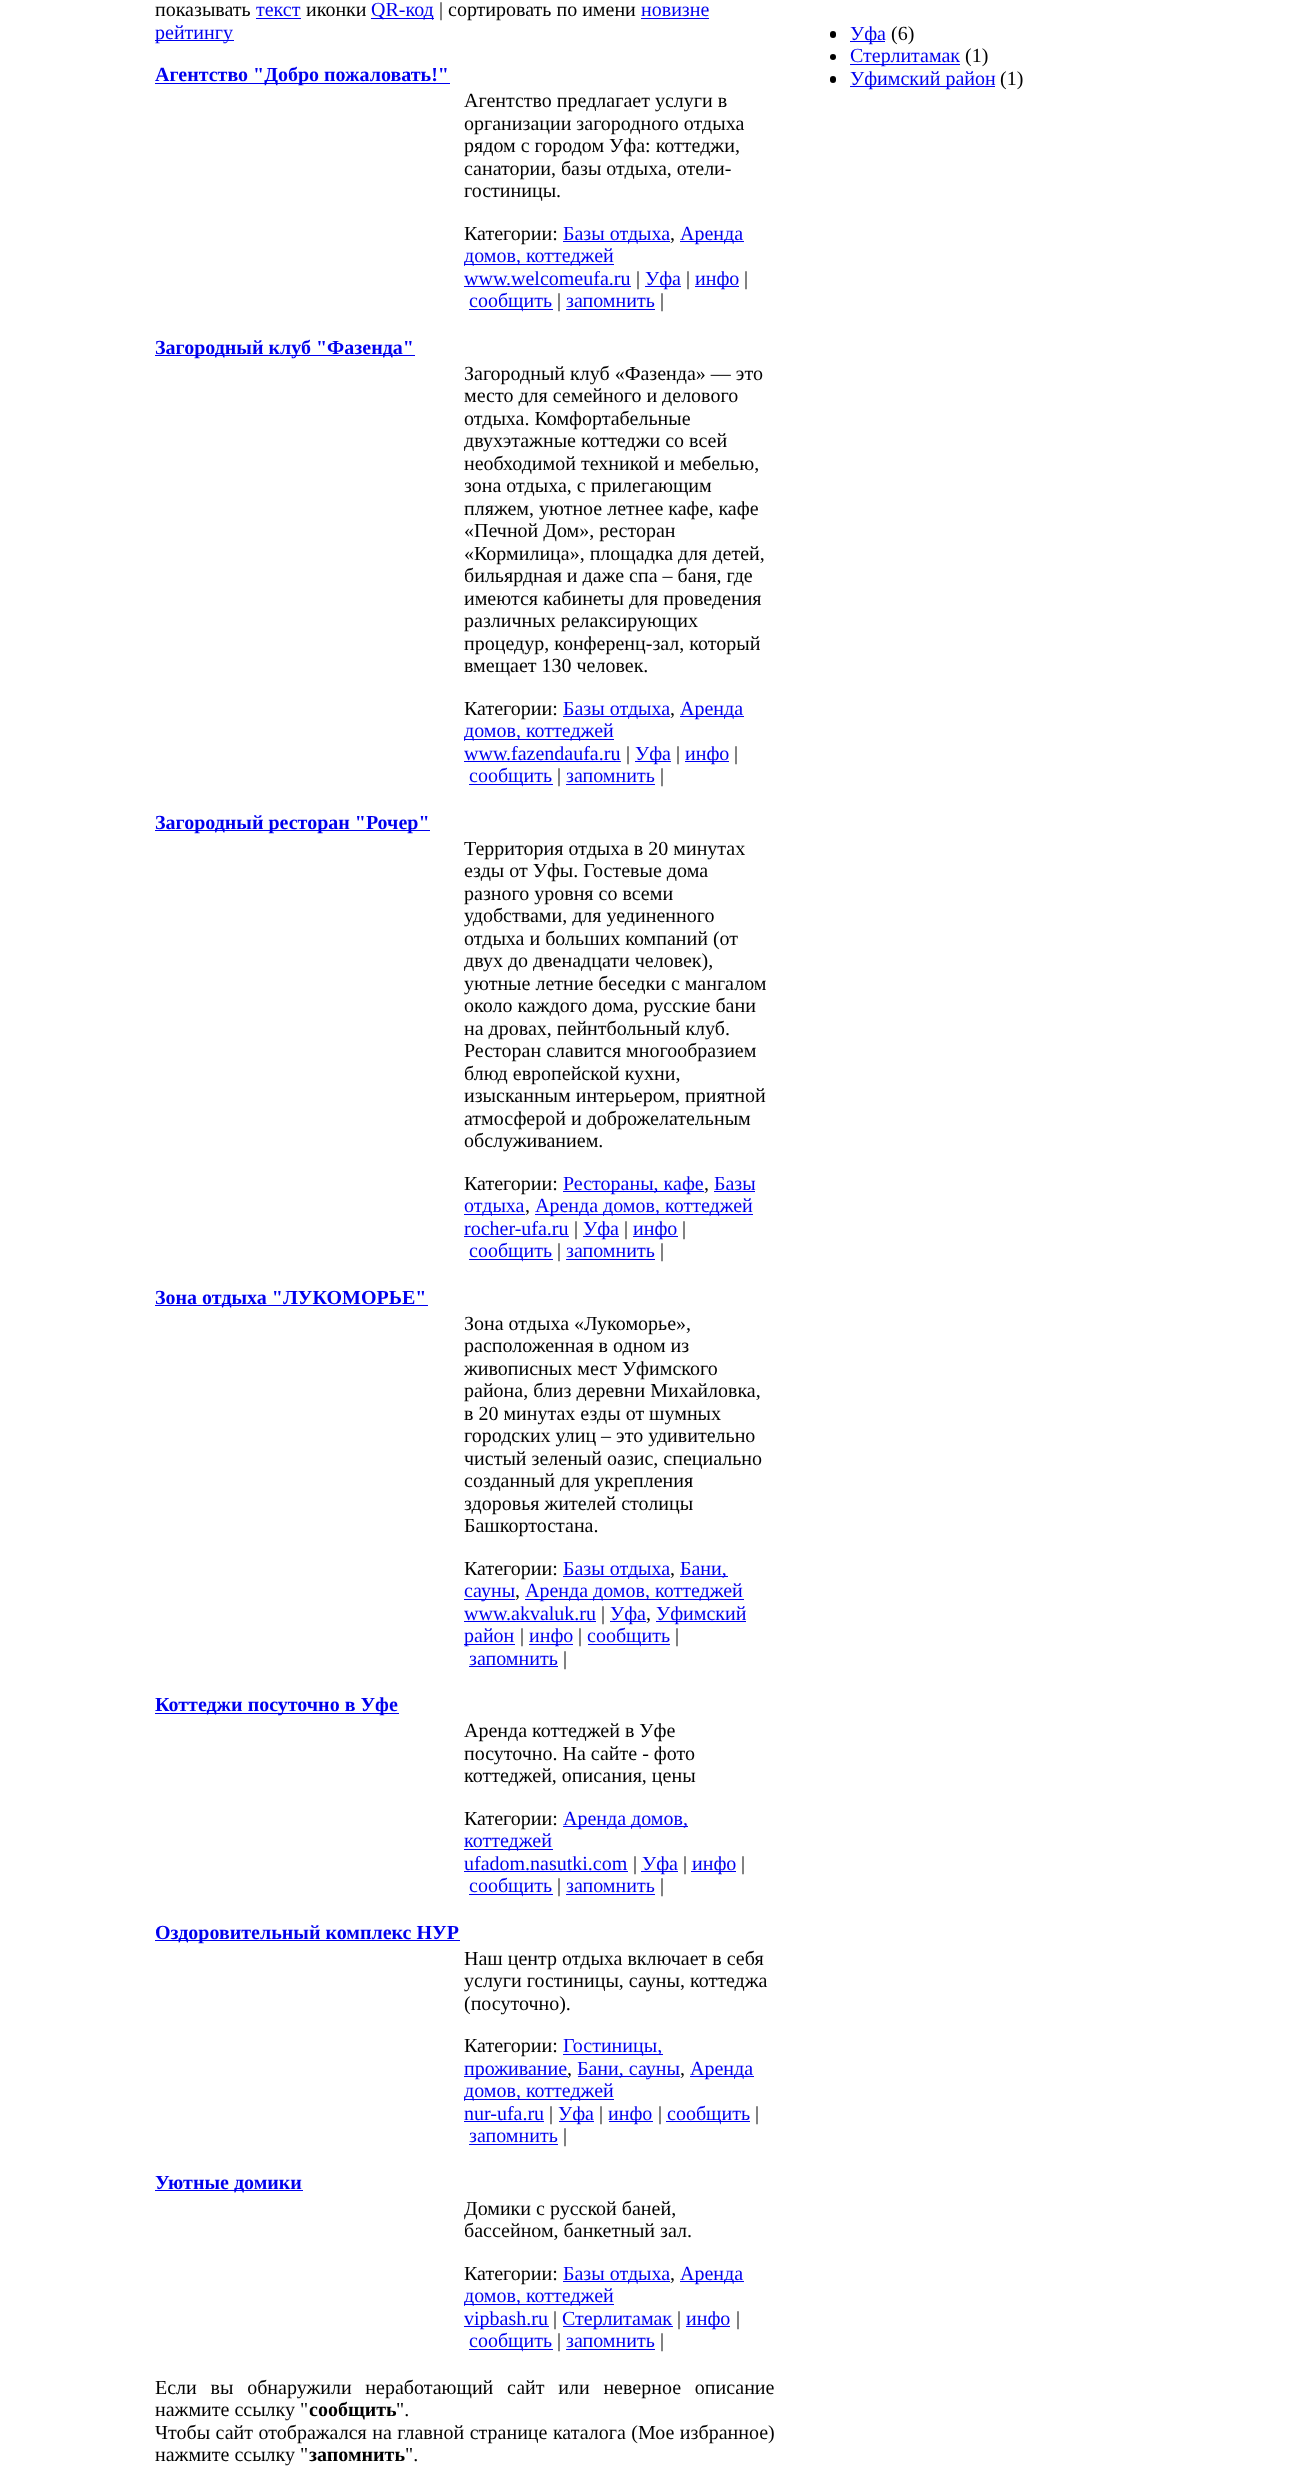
async function draw(canvas) {
  canvas.width = 1305;
  canvas.height = 2491;
  const ctx = canvas.getContext('2d');
  ctx.miterLimit = 4;
  ctx.fontKerning = 'normal';
  function label(s, x, y, font, color) {
    ctx.font = font;
    ctx.fillStyle = color;
    ctx.fillText(s, x, y);
  }
  function rect(x, y, w, h, color) {
    ctx.fillStyle = color;
    ctx.fillRect(x, y, w, h);
  }
  function roundedRect(x, y, w, h, r, color) {
    ctx.fillStyle = color;
    ctx.beginPath();
    ctx.roundRect(x, y, w, h, r);
    ctx.fill();
  }

  rect(0, 0, 1305, 2491, '#fff');
  label('показывать', 155, 16, '20px Liberation Serif', '#000');
  label('текст', 256, 16, '20px Liberation Serif', '#00e');
  rect(256, 18, 45, 1, '#00e');
  label('иконки', 306, 16, '20px Liberation Serif', '#000');
  rect(371, 18, 63, 1, '#00e');
  label('QR-код', 371, 16, '20px Liberation Serif', '#00e');
  label('| сортировать по имени', 439, 16, '20px Liberation Serif', '#000');
  label('новизне', 641, 16, '20px Liberation Serif', '#00e');
  rect(641, 18, 68, 1, '#00e');
  rect(155, 40, 79, 1, '#00e');
  label('рейтингу', 155, 39, '20px Liberation Serif', '#00e');
  rect(155, 83, 295, 1, '#00e');
  label('Агентство "Добро пожаловать!"', 155, 81, 'bold 20px Liberation Serif', '#00e');
  label('Агентство предлагает услуги в', 464, 107, '20px Liberation Serif', '#000');
  label('организации загородного отдыха', 464, 130, '20px Liberation Serif', '#000');
  label('рядом с городом Уфа: коттеджи,', 464, 152, '20px Liberation Serif', '#000');
  label('санатории, базы отдыха, отели-', 464, 175, '20px Liberation Serif', '#000');
  label('гостиницы.', 464, 197, '20px Liberation Serif', '#000');
  label('Категории:', 464, 240, '20px Liberation Serif', '#000');
  rect(563, 241, 107, 1, '#00e');
  label('Базы отдыха', 563, 240, '20px Liberation Serif', '#00e');
  label(',', 670, 240, '20px Liberation Serif', '#000');
  rect(680, 241, 64, 1, '#00e');
  label('Аренда', 680, 240, '20px Liberation Serif', '#00e');
  rect(464, 264, 150, 1, '#00e');
  label('домов, коттеджей', 464, 262, '20px Liberation Serif', '#00e');
  label('www.welcomeufa.ru', 464, 285, '20px Liberation Serif', '#00e');
  rect(464, 286, 167, 1, '#00e');
  label('|', 636, 285, '20px Liberation Serif', '#000');
  rect(645, 286, 36, 1, '#00e');
  label('Уфа', 645, 285, '20px Liberation Serif', '#00e');
  label('|', 686, 285, '20px Liberation Serif', '#000');
  rect(695, 286, 44, 1, '#00e');
  label('инфо', 695, 285, '20px Liberation Serif', '#00e');
  label('|', 744, 285, '20px Liberation Serif', '#000');
  rect(469, 309, 84, 1, '#00e');
  label('сообщить', 469, 307, '20px Liberation Serif', '#00e');
  label('|', 557, 307, '20px Liberation Serif', '#000');
  label('запомнить', 566, 307, '20px Liberation Serif', '#00e');
  rect(566, 309, 89, 1, '#00e');
  label('|', 660, 307, '20px Liberation Serif', '#000');
  rect(155, 355, 260, 1, '#00e');
  label('Загородный клуб "Фазенда"', 155, 354, 'bold 20px Liberation Serif', '#00e');
  label('Загородный клуб «Фазенда» — это', 464, 380, '20px Liberation Serif', '#000');
  label('место для семейного и делового', 464, 402, '20px Liberation Serif', '#000');
  label('отдыха. Комфортабельные', 464, 425, '20px Liberation Serif', '#000');
  label('двухэтажные коттеджи со всей', 464, 447, '20px Liberation Serif', '#000');
  label('необходимой техникой и мебелью,', 464, 470, '20px Liberation Serif', '#000');
  label('зона отдыха, с прилегающим', 464, 492, '20px Liberation Serif', '#000');
  label('пляжем, уютное летнее кафе, кафе', 464, 515, '20px Liberation Serif', '#000');
  label('«Печной Дом», ресторан', 464, 537, '20px Liberation Serif', '#000');
  label('«Кормилица», площадка для детей,', 464, 560, '20px Liberation Serif', '#000');
  label('бильярдная и даже спа – баня, где', 464, 582, '20px Liberation Serif', '#000');
  label('имеются кабинеты для проведения', 464, 605, '20px Liberation Serif', '#000');
  label('различных релаксирующих', 464, 627, '20px Liberation Serif', '#000');
  label('процедур, конференц-зал, который', 464, 650, '20px Liberation Serif', '#000');
  label('вмещает 130 человек.', 464, 672, '20px Liberation Serif', '#000');
  label('Категории:', 464, 715, '20px Liberation Serif', '#000');
  rect(563, 716, 107, 1, '#00e');
  label('Базы отдыха', 563, 715, '20px Liberation Serif', '#00e');
  label(',', 670, 715, '20px Liberation Serif', '#000');
  rect(680, 716, 64, 1, '#00e');
  label('Аренда', 680, 715, '20px Liberation Serif', '#00e');
  rect(464, 739, 150, 1, '#00e');
  label('домов, коттеджей', 464, 737, '20px Liberation Serif', '#00e');
  label('www.fazendaufa.ru', 464, 760, '20px Liberation Serif', '#00e');
  rect(464, 761, 157, 1, '#00e');
  label('|', 626, 760, '20px Liberation Serif', '#000');
  rect(635, 761, 36, 1, '#00e');
  label('Уфа', 635, 760, '20px Liberation Serif', '#00e');
  label('|', 676, 760, '20px Liberation Serif', '#000');
  rect(685, 761, 44, 1, '#00e');
  label('инфо', 685, 760, '20px Liberation Serif', '#00e');
  label('|', 734, 760, '20px Liberation Serif', '#000');
  rect(469, 784, 84, 1, '#00e');
  label('сообщить', 469, 782, '20px Liberation Serif', '#00e');
  label('|', 557, 782, '20px Liberation Serif', '#000');
  label('запомнить', 566, 782, '20px Liberation Serif', '#00e');
  rect(566, 784, 89, 1, '#00e');
  label('|', 660, 782, '20px Liberation Serif', '#000');
  rect(155, 830, 275, 1, '#00e');
  label('Загородный ресторан "Рочер"', 155, 829, 'bold 20px Liberation Serif', '#00e');
  label('Территория отдыха в 20 минутах', 464, 855, '20px Liberation Serif', '#000');
  label('езды от Уфы. Гостевые дома', 464, 877, '20px Liberation Serif', '#000');
  label('разного уровня со всеми', 464, 900, '20px Liberation Serif', '#000');
  label('удобствами, для уединенного', 464, 922, '20px Liberation Serif', '#000');
  label('отдыха и больших компаний (от', 464, 945, '20px Liberation Serif', '#000');
  label('двух до двенадцати человек),', 464, 967, '20px Liberation Serif', '#000');
  label('уютные летние беседки с мангалом', 464, 990, '20px Liberation Serif', '#000');
  label('около каждого дома, русские бани', 464, 1012, '20px Liberation Serif', '#000');
  label('на дровах, пейнтбольный клуб.', 464, 1035, '20px Liberation Serif', '#000');
  label('Ресторан славится многообразием', 464, 1057, '20px Liberation Serif', '#000');
  label('блюд европейской кухни,', 464, 1080, '20px Liberation Serif', '#000');
  label('изысканным интерьером, приятной', 464, 1102, '20px Liberation Serif', '#000');
  label('атмосферой и доброжелательным', 464, 1125, '20px Liberation Serif', '#000');
  label('обслуживанием.', 464, 1147, '20px Liberation Serif', '#000');
  label('Категории:', 464, 1190, '20px Liberation Serif', '#000');
  rect(563, 1191, 141, 1, '#00e');
  label('Рестораны, кафе', 563, 1190, '20px Liberation Serif', '#00e');
  label(',', 704, 1190, '20px Liberation Serif', '#000');
  label('Базы', 714, 1190, '20px Liberation Serif', '#00e');
  rect(714, 1191, 41, 1, '#00e');
  rect(464, 1214, 61, 1, '#00e');
  label('отдыха', 464, 1212, '20px Liberation Serif', '#00e');
  label(',', 525, 1212, '20px Liberation Serif', '#000');
  rect(535, 1214, 218, 1, '#00e');
  label('Аренда домов, коттеджей', 535, 1212, '20px Liberation Serif', '#00e');
  label('rocher-ufa.ru', 464, 1235, '20px Liberation Serif', '#00e');
  rect(464, 1236, 105, 1, '#00e');
  label('|', 574, 1235, '20px Liberation Serif', '#000');
  rect(583, 1236, 36, 1, '#00e');
  label('Уфа', 583, 1235, '20px Liberation Serif', '#00e');
  label('|', 624, 1235, '20px Liberation Serif', '#000');
  rect(633, 1236, 45, 1, '#00e');
  label('инфо', 633, 1235, '20px Liberation Serif', '#00e');
  label('|', 682, 1235, '20px Liberation Serif', '#000');
  rect(469, 1259, 84, 1, '#00e');
  label('сообщить', 469, 1257, '20px Liberation Serif', '#00e');
  label('|', 557, 1257, '20px Liberation Serif', '#000');
  label('запомнить', 566, 1257, '20px Liberation Serif', '#00e');
  rect(566, 1259, 89, 1, '#00e');
  label('|', 660, 1257, '20px Liberation Serif', '#000');
  rect(155, 1305, 273, 1, '#00e');
  label('Зона отдыха "ЛУКОМОРЬЕ"', 155, 1304, 'bold 20px Liberation Serif', '#00e');
  label('Зона отдыха «Лукоморье»,', 464, 1330, '20px Liberation Serif', '#000');
  label('расположенная в одном из', 464, 1352, '20px Liberation Serif', '#000');
  label('живописных мест Уфимского', 464, 1375, '20px Liberation Serif', '#000');
  label('района, близ деревни Михайловка,', 464, 1397, '20px Liberation Serif', '#000');
  label('в 20 минутах езды от шумных', 464, 1420, '20px Liberation Serif', '#000');
  label('городских улиц – это удивительно', 464, 1442, '20px Liberation Serif', '#000');
  label('чистый зеленый оазис, специально', 464, 1465, '20px Liberation Serif', '#000');
  label('созданный для укрепления', 464, 1487, '20px Liberation Serif', '#000');
  label('здоровья жителей столицы', 464, 1510, '20px Liberation Serif', '#000');
  label('Башкортостана.', 464, 1532, '20px Liberation Serif', '#000');
  label('Категории:', 464, 1575, '20px Liberation Serif', '#000');
  rect(563, 1576, 107, 1, '#00e');
  label('Базы отдыха', 563, 1575, '20px Liberation Serif', '#00e');
  label(',', 670, 1575, '20px Liberation Serif', '#000');
  rect(680, 1576, 48, 1, '#00e');
  label('Бани,', 680, 1575, '20px Liberation Serif', '#00e');
  rect(464, 1599, 51, 1, '#00e');
  label('сауны', 464, 1597, '20px Liberation Serif', '#00e');
  label(',', 515, 1597, '20px Liberation Serif', '#000');
  rect(525, 1599, 219, 1, '#00e');
  label('Аренда домов, коттеджей', 525, 1597, '20px Liberation Serif', '#00e');
  label('www.akvaluk.ru', 464, 1620, '20px Liberation Serif', '#00e');
  rect(464, 1621, 132, 1, '#00e');
  label('|', 601, 1620, '20px Liberation Serif', '#000');
  rect(610, 1621, 36, 1, '#00e');
  label('Уфа', 610, 1620, '20px Liberation Serif', '#00e');
  label(',', 646, 1620, '20px Liberation Serif', '#000');
  rect(656, 1621, 90, 1, '#00e');
  label('Уфимский', 656, 1620, '20px Liberation Serif', '#00e');
  rect(464, 1644, 51, 1, '#00e');
  label('район', 464, 1642, '20px Liberation Serif', '#00e');
  label('|', 520, 1642, '20px Liberation Serif', '#000');
  rect(529, 1644, 44, 1, '#00e');
  label('инфо', 529, 1642, '20px Liberation Serif', '#00e');
  label('|', 578, 1642, '20px Liberation Serif', '#000');
  rect(588, 1644, 82, 1, '#00e');
  label('сообщить', 587, 1642, '20px Liberation Serif', '#00e');
  label('|', 675, 1642, '20px Liberation Serif', '#000');
  label('запомнить', 469, 1665, '20px Liberation Serif', '#00e');
  rect(469, 1666, 89, 1, '#00e');
  label('|', 563, 1665, '20px Liberation Serif', '#000');
  rect(155, 1713, 244, 1, '#00e');
  label('Коттеджи посуточно в Уфе', 155, 1711, 'bold 20px Liberation Serif', '#00e');
  label('Аренда коттеджей в Уфе', 464, 1737, '20px Liberation Serif', '#000');
  label('посуточно. На сайте - фото', 464, 1760, '20px Liberation Serif', '#000');
  label('коттеджей, описания, цены', 464, 1782, '20px Liberation Serif', '#000');
  label('Категории:', 464, 1825, '20px Liberation Serif', '#000');
  rect(563, 1826, 125, 1, '#00e');
  label('Аренда домов,', 563, 1825, '20px Liberation Serif', '#00e');
  rect(464, 1849, 89, 1, '#00e');
  label('коттеджей', 464, 1847, '20px Liberation Serif', '#00e');
  label('ufadom.nasutki.com', 464, 1870, '20px Liberation Serif', '#00e');
  rect(464, 1871, 164, 1, '#00e');
  label('|', 633, 1870, '20px Liberation Serif', '#000');
  rect(641, 1871, 37, 1, '#00e');
  label('Уфа', 642, 1870, '20px Liberation Serif', '#00e');
  label('|', 683, 1870, '20px Liberation Serif', '#000');
  rect(691, 1871, 45, 1, '#00e');
  label('инфо', 692, 1870, '20px Liberation Serif', '#00e');
  label('|', 741, 1870, '20px Liberation Serif', '#000');
  rect(469, 1894, 84, 1, '#00e');
  label('сообщить', 469, 1892, '20px Liberation Serif', '#00e');
  label('|', 557, 1892, '20px Liberation Serif', '#000');
  label('запомнить', 566, 1892, '20px Liberation Serif', '#00e');
  rect(566, 1894, 89, 1, '#00e');
  label('|', 660, 1892, '20px Liberation Serif', '#000');
  rect(155, 1940, 305, 1, '#00e');
  label('Оздоровительный комплекс НУР', 155, 1939, 'bold 20px Liberation Serif', '#00e');
  label('Наш центр отдыха включает в себя', 464, 1965, '20px Liberation Serif', '#000');
  label('услуги гостиницы, сауны, коттеджа', 464, 1987, '20px Liberation Serif', '#000');
  label('(посуточно).', 464, 2010, '20px Liberation Serif', '#000');
  label('Категории:', 464, 2052, '20px Liberation Serif', '#000');
  rect(563, 2054, 100, 1, '#00e');
  label('Гостиницы,', 563, 2052, '20px Liberation Serif', '#00e');
  rect(464, 2076, 104, 1, '#00e');
  label('проживание', 464, 2075, '20px Liberation Serif', '#00e');
  label(',', 567, 2075, '20px Liberation Serif', '#000');
  rect(578, 2076, 102, 1, '#00e');
  label('Бани, сауны', 577, 2075, '20px Liberation Serif', '#00e');
  label(',', 680, 2075, '20px Liberation Serif', '#000');
  rect(690, 2076, 64, 1, '#00e');
  label('Аренда', 690, 2075, '20px Liberation Serif', '#00e');
  rect(464, 2099, 150, 1, '#00e');
  label('домов, коттеджей', 464, 2097, '20px Liberation Serif', '#00e');
  label('nur-ufa.ru', 464, 2120, '20px Liberation Serif', '#00e');
  rect(464, 2121, 80, 1, '#00e');
  label('|', 549, 2120, '20px Liberation Serif', '#000');
  rect(559, 2121, 35, 1, '#00e');
  label('Уфа', 558, 2120, '20px Liberation Serif', '#00e');
  label('|', 599, 2120, '20px Liberation Serif', '#000');
  rect(609, 2121, 44, 1, '#00e');
  label('инфо', 608, 2120, '20px Liberation Serif', '#00e');
  label('|', 658, 2120, '20px Liberation Serif', '#000');
  rect(666, 2121, 84, 1, '#00e');
  label('сообщить', 667, 2120, '20px Liberation Serif', '#00e');
  label('|', 755, 2120, '20px Liberation Serif', '#000');
  label('запомнить', 469, 2142, '20px Liberation Serif', '#00e');
  rect(469, 2144, 89, 1, '#00e');
  label('|', 563, 2142, '20px Liberation Serif', '#000');
  rect(155, 2190, 148, 1, '#00e');
  label('Уютные домики', 155, 2189, 'bold 20px Liberation Serif', '#00e');
  label('Домики с русской баней,', 464, 2215, '20px Liberation Serif', '#000');
  label('бассейном, банкетный зал.', 464, 2237, '20px Liberation Serif', '#000');
  label('Категории:', 464, 2280, '20px Liberation Serif', '#000');
  rect(563, 2281, 107, 1, '#00e');
  label('Базы отдыха', 563, 2280, '20px Liberation Serif', '#00e');
  label(',', 670, 2280, '20px Liberation Serif', '#000');
  rect(680, 2281, 64, 1, '#00e');
  label('Аренда', 680, 2280, '20px Liberation Serif', '#00e');
  rect(464, 2304, 150, 1, '#00e');
  label('домов, коттеджей', 464, 2302, '20px Liberation Serif', '#00e');
  rect(464, 2326, 85, 1, '#00e');
  label('vipbash.ru', 464, 2325, '20px Liberation Serif', '#00e');
  label('|', 553, 2325, '20px Liberation Serif', '#000');
  rect(563, 2326, 110, 1, '#00e');
  label('Стерлитамак', 562, 2325, '20px Liberation Serif', '#00e');
  label('|', 677, 2325, '20px Liberation Serif', '#000');
  rect(686, 2326, 44, 1, '#00e');
  label('инфо', 686, 2325, '20px Liberation Serif', '#00e');
  label('|', 736, 2325, '20px Liberation Serif', '#000');
  rect(469, 2349, 84, 1, '#00e');
  label('сообщить', 469, 2347, '20px Liberation Serif', '#00e');
  label('|', 557, 2347, '20px Liberation Serif', '#000');
  label('запомнить', 566, 2347, '20px Liberation Serif', '#00e');
  rect(566, 2349, 89, 1, '#00e');
  label('|', 660, 2347, '20px Liberation Serif', '#000');
  ctx.wordSpacing = '8.75px';
  label('Если вы обнаружили неработающий сайт или неверное описание', 155, 2394, '20px Liberation Serif', '#000');
  ctx.wordSpacing = '0px';
  label('нажмите ссылку "', 155, 2416, '20px Liberation Serif', '#000');
  label('сообщить', 309, 2416, 'bold 20px Liberation Serif', '#000');
  label('".', 396, 2416, '20px Liberation Serif', '#000');
  ctx.wordSpacing = '0.5px';
  label('Чтобы сайт отображался на главной странице каталога (Мое избранное)', 155, 2439, '20px Liberation Serif', '#000');
  ctx.wordSpacing = '0px';
  label('нажмите ссылку "', 155, 2461, '20px Liberation Serif', '#000');
  label('запомнить', 309, 2461, 'bold 20px Liberation Serif', '#000');
  label('".', 405, 2461, '20px Liberation Serif', '#000');
  roundedRect(830, 31, 6, 7, 3, '#000');
  rect(850, 41, 35, 1, '#00e');
  label('Уфа', 850, 40, '20px Liberation Serif', '#00e');
  label('(6)', 891, 40, '20px Liberation Serif', '#000');
  ctx.beginPath();
  ctx.arc(833, 57, 3, 0, 2 * Math.PI);
  ctx.fill();
  rect(850, 64, 110, 1, '#00e');
  label('Стерлитамак', 850, 62, '20px Liberation Serif', '#00e');
  label('(1)', 965, 62, '20px Liberation Serif', '#000');
  roundedRect(830, 76, 6, 7, 3, '#000');
  rect(850, 86, 145, 1, '#00e');
  label('Уфимский район', 850, 85, '20px Liberation Serif', '#00e');
  label('(1)', 1000, 85, '20px Liberation Serif', '#000');
}

draw(document.querySelector('canvas'));
